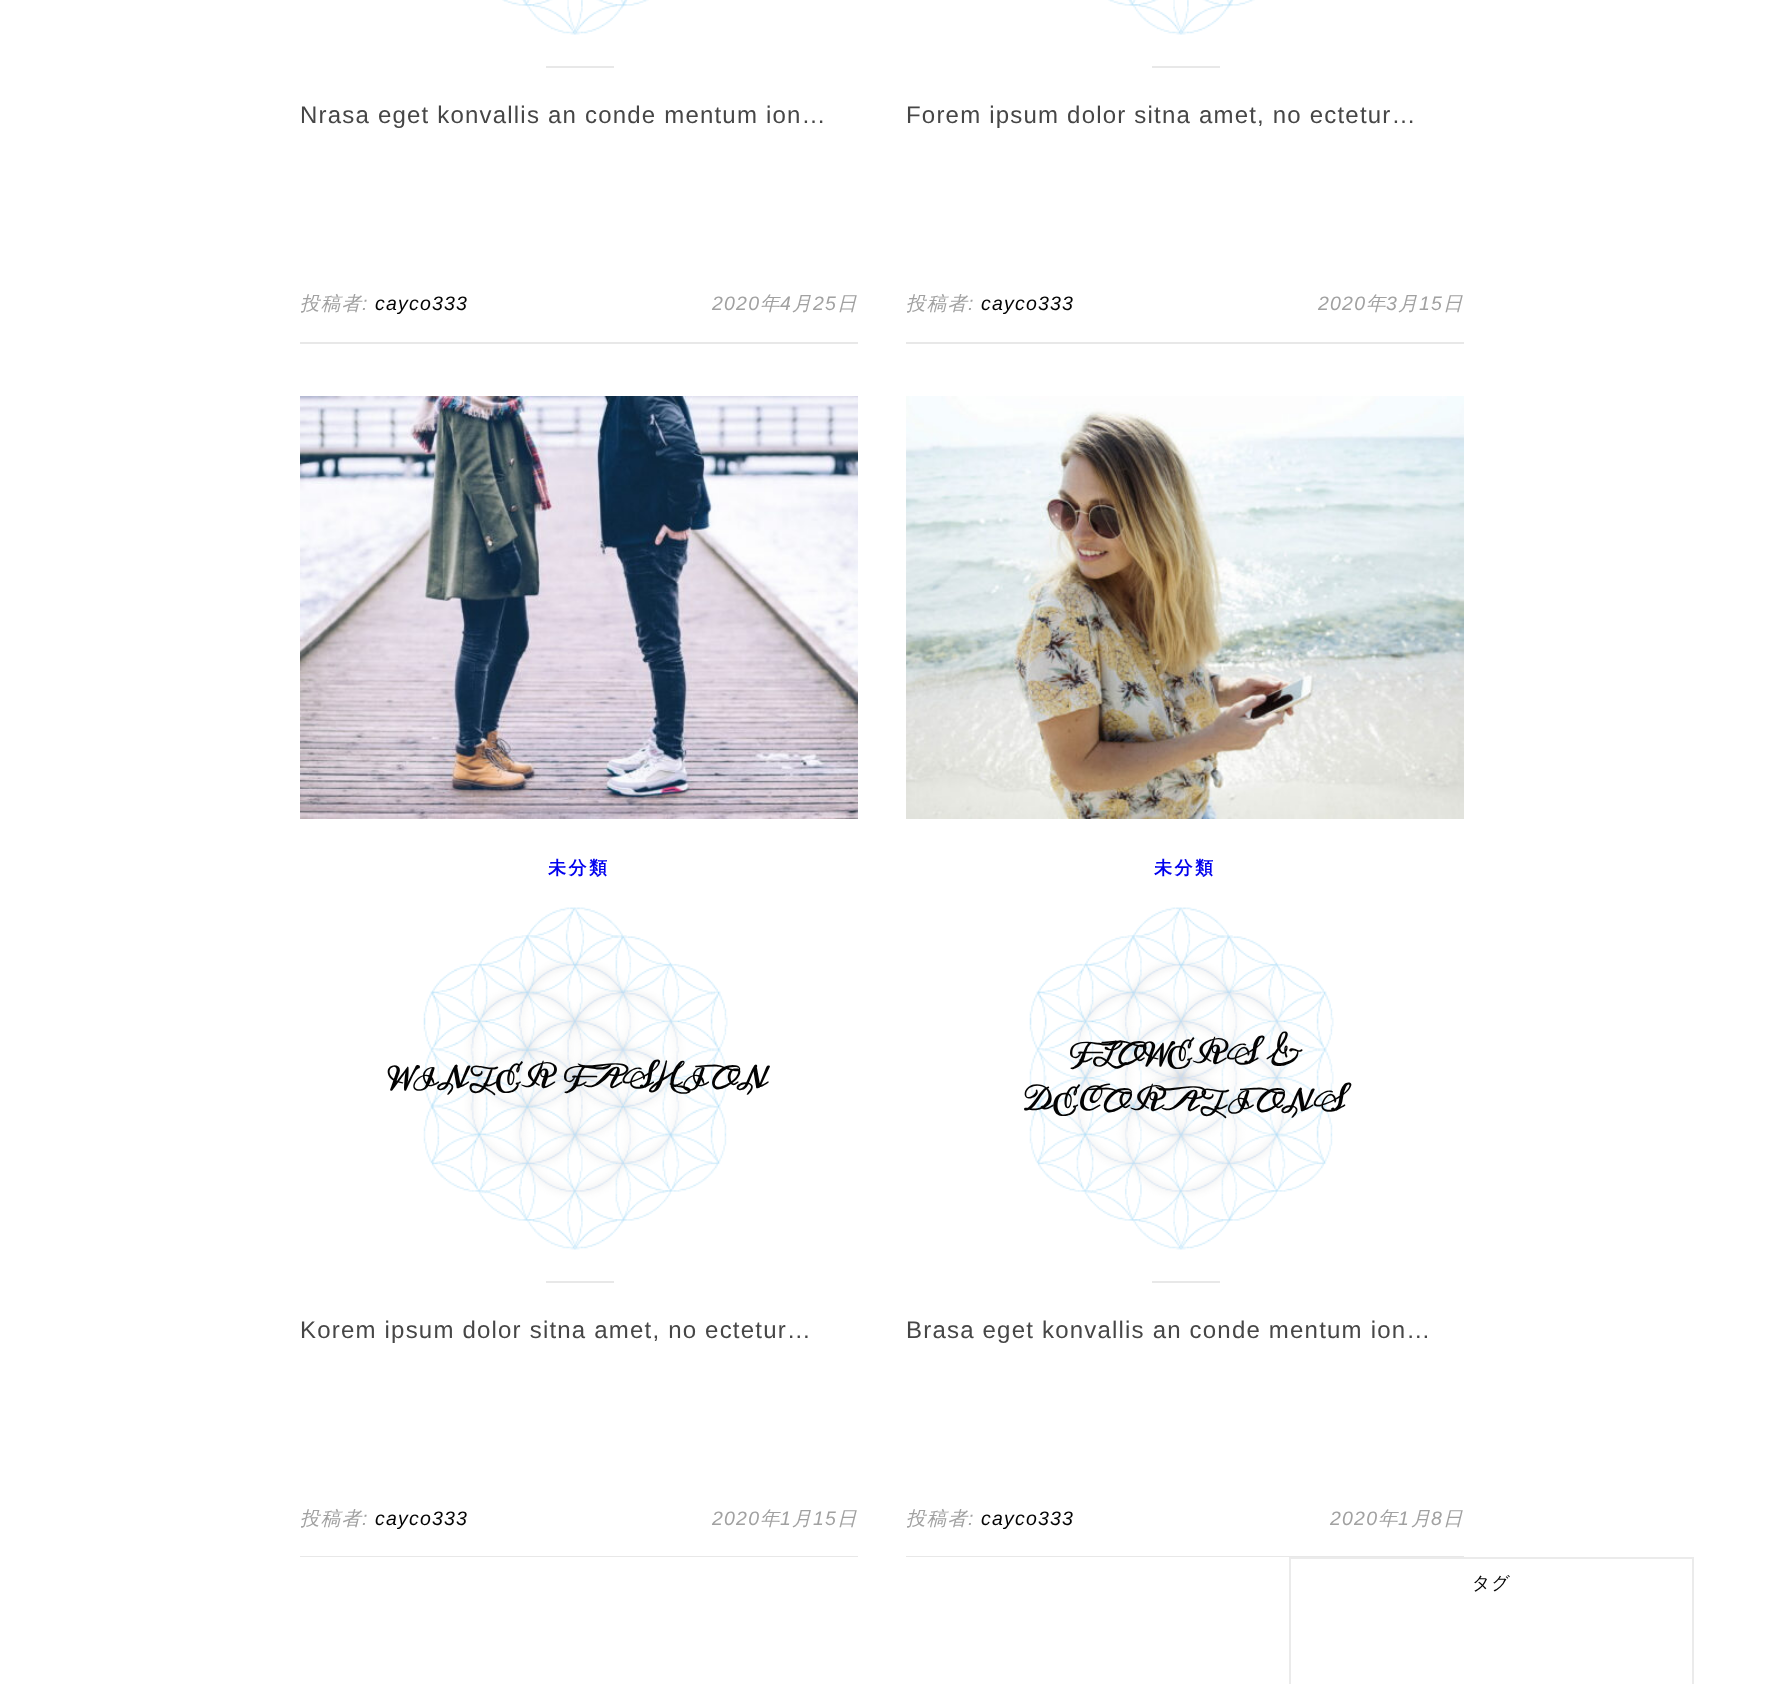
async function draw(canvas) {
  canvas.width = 1766;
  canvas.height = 1684;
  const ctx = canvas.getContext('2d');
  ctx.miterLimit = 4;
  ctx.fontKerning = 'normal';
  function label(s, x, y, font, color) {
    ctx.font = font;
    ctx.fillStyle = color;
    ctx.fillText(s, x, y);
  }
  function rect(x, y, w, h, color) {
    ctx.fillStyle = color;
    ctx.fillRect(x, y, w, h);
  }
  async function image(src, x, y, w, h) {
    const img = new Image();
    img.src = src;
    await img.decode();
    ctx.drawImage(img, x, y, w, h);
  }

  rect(0, 0, 1766, 1684, '#fff');
  await image('assets/img1.png', 502, 0, 147, 35);
  rect(546, 66, 68, 2, '#e8e8e8');
  ctx.letterSpacing = '1.2px';
  label('Nrasa eget konvallis an conde mentum ion…', 300, 123, '24px Liberation Sans', '#464646');
  rect(300, 342, 558, 2, '#e8e8e8');
  label('投稿者', 300, 310, 'italic 500 19.5px WenQuanYi Zen Hei', '#a1a1a1');
  label(':', 362, 310, 'italic 19.5px Liberation Sans', '#a1a1a1');
  label('cayco333', 375, 310, 'italic 19.5px Liberation Sans', '#030303');
  label('2020', 712, 310, 'italic 19.5px Liberation Sans', '#a1a1a1');
  label('年', 760, 310, 'italic 500 19.5px WenQuanYi Zen Hei', '#a1a1a1');
  label('4', 780, 310, 'italic 19.5px Liberation Sans', '#a1a1a1');
  label('月', 792, 310, 'italic 500 19.5px WenQuanYi Zen Hei', '#a1a1a1');
  label('25', 813, 310, 'italic 19.5px Liberation Sans', '#a1a1a1');
  label('日', 837, 310, 'italic 500 19.5px WenQuanYi Zen Hei', '#a1a1a1');
  await image('assets/img1.png', 1108, 0, 147, 35);
  rect(1152, 66, 68, 2, '#e8e8e8');
  label('Forem ipsum dolor sitna amet, no ectetur…', 906, 123, '24px Liberation Sans', '#464646');
  rect(906, 342, 558, 2, '#e8e8e8');
  label('投稿者', 906, 310, 'italic 500 19.5px WenQuanYi Zen Hei', '#a1a1a1');
  label(':', 968, 310, 'italic 19.5px Liberation Sans', '#a1a1a1');
  label('cayco333', 981, 310, 'italic 19.5px Liberation Sans', '#030303');
  label('2020', 1318, 310, 'italic 19.5px Liberation Sans', '#a1a1a1');
  label('年', 1366, 310, 'italic 500 19.5px WenQuanYi Zen Hei', '#a1a1a1');
  label('3', 1386, 310, 'italic 19.5px Liberation Sans', '#a1a1a1');
  label('月', 1398, 310, 'italic 500 19.5px WenQuanYi Zen Hei', '#a1a1a1');
  label('15', 1419, 310, 'italic 19.5px Liberation Sans', '#a1a1a1');
  label('日', 1443, 310, 'italic 500 19.5px WenQuanYi Zen Hei', '#a1a1a1');
  await image('assets/img2.png', 300, 396, 558, 423);
  ctx.letterSpacing = '2.5px';
  label('未分類', 548, 874, 'bold 18px WenQuanYi Zen Hei', '#00e');
  await image('assets/img3.png', 423, 907, 305, 343);
  ctx.letterSpacing = '1.5px';
  label('WINTER FASHION', 390, 1087, 'bold 24px Meddon', '#030303');
  rect(546, 1281, 68, 2, '#e8e8e8');
  ctx.letterSpacing = '1.2px';
  label('Korem ipsum dolor sitna amet, no ectetur…', 300, 1338, '24px Liberation Sans', '#464646');
  rect(300, 1556, 558, 1, '#e8e8e8');
  label('投稿者', 300, 1525, 'italic 500 19.5px WenQuanYi Zen Hei', '#a1a1a1');
  label(':', 362, 1525, 'italic 19.5px Liberation Sans', '#a1a1a1');
  label('cayco333', 375, 1525, 'italic 19.5px Liberation Sans', '#030303');
  label('2020', 712, 1525, 'italic 19.5px Liberation Sans', '#a1a1a1');
  label('年', 760, 1525, 'italic 500 19.5px WenQuanYi Zen Hei', '#a1a1a1');
  label('1', 780, 1525, 'italic 19.5px Liberation Sans', '#a1a1a1');
  label('月', 792, 1525, 'italic 500 19.5px WenQuanYi Zen Hei', '#a1a1a1');
  label('15', 813, 1525, 'italic 19.5px Liberation Sans', '#a1a1a1');
  label('日', 837, 1525, 'italic 500 19.5px WenQuanYi Zen Hei', '#a1a1a1');
  await image('assets/img4.png', 906, 396, 558, 423);
  ctx.letterSpacing = '2.5px';
  label('未分類', 1154, 874, 'bold 18px WenQuanYi Zen Hei', '#00e');
  await image('assets/img3.png', 1029, 907, 305, 343);
  ctx.letterSpacing = '1.5px';
  label('FLOWERS &', 1070, 1063, 'bold 24px Meddon', '#030303');
  label('DECORATIONS', 1024, 1110, 'bold 24px Meddon', '#030303');
  rect(1152, 1281, 68, 2, '#e8e8e8');
  ctx.letterSpacing = '1.2px';
  label('Brasa eget konvallis an conde mentum ion…', 906, 1338, '24px Liberation Sans', '#464646');
  rect(906, 1556, 558, 1, '#e8e8e8');
  label('投稿者', 906, 1525, 'italic 500 19.5px WenQuanYi Zen Hei', '#a1a1a1');
  label(':', 968, 1525, 'italic 19.5px Liberation Sans', '#a1a1a1');
  label('cayco333', 981, 1525, 'italic 19.5px Liberation Sans', '#030303');
  label('2020', 1330, 1525, 'italic 19.5px Liberation Sans', '#a1a1a1');
  label('年', 1378, 1525, 'italic 500 19.5px WenQuanYi Zen Hei', '#a1a1a1');
  label('1', 1398, 1525, 'italic 19.5px Liberation Sans', '#a1a1a1');
  label('月', 1411, 1525, 'italic 500 19.5px WenQuanYi Zen Hei', '#a1a1a1');
  label('8', 1431, 1525, 'italic 19.5px Liberation Sans', '#a1a1a1');
  label('日', 1443, 1525, 'italic 500 19.5px WenQuanYi Zen Hei', '#a1a1a1');
  ctx.strokeStyle = '#ebebeb';
  ctx.lineWidth = 2;
  ctx.strokeRect(1290, 1558, 403, 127);
  ctx.letterSpacing = '1px';
  label('タグ', 1472, 1589, '500 18px WenQuanYi Zen Hei', '#030303');
}

draw(document.querySelector('canvas'));
